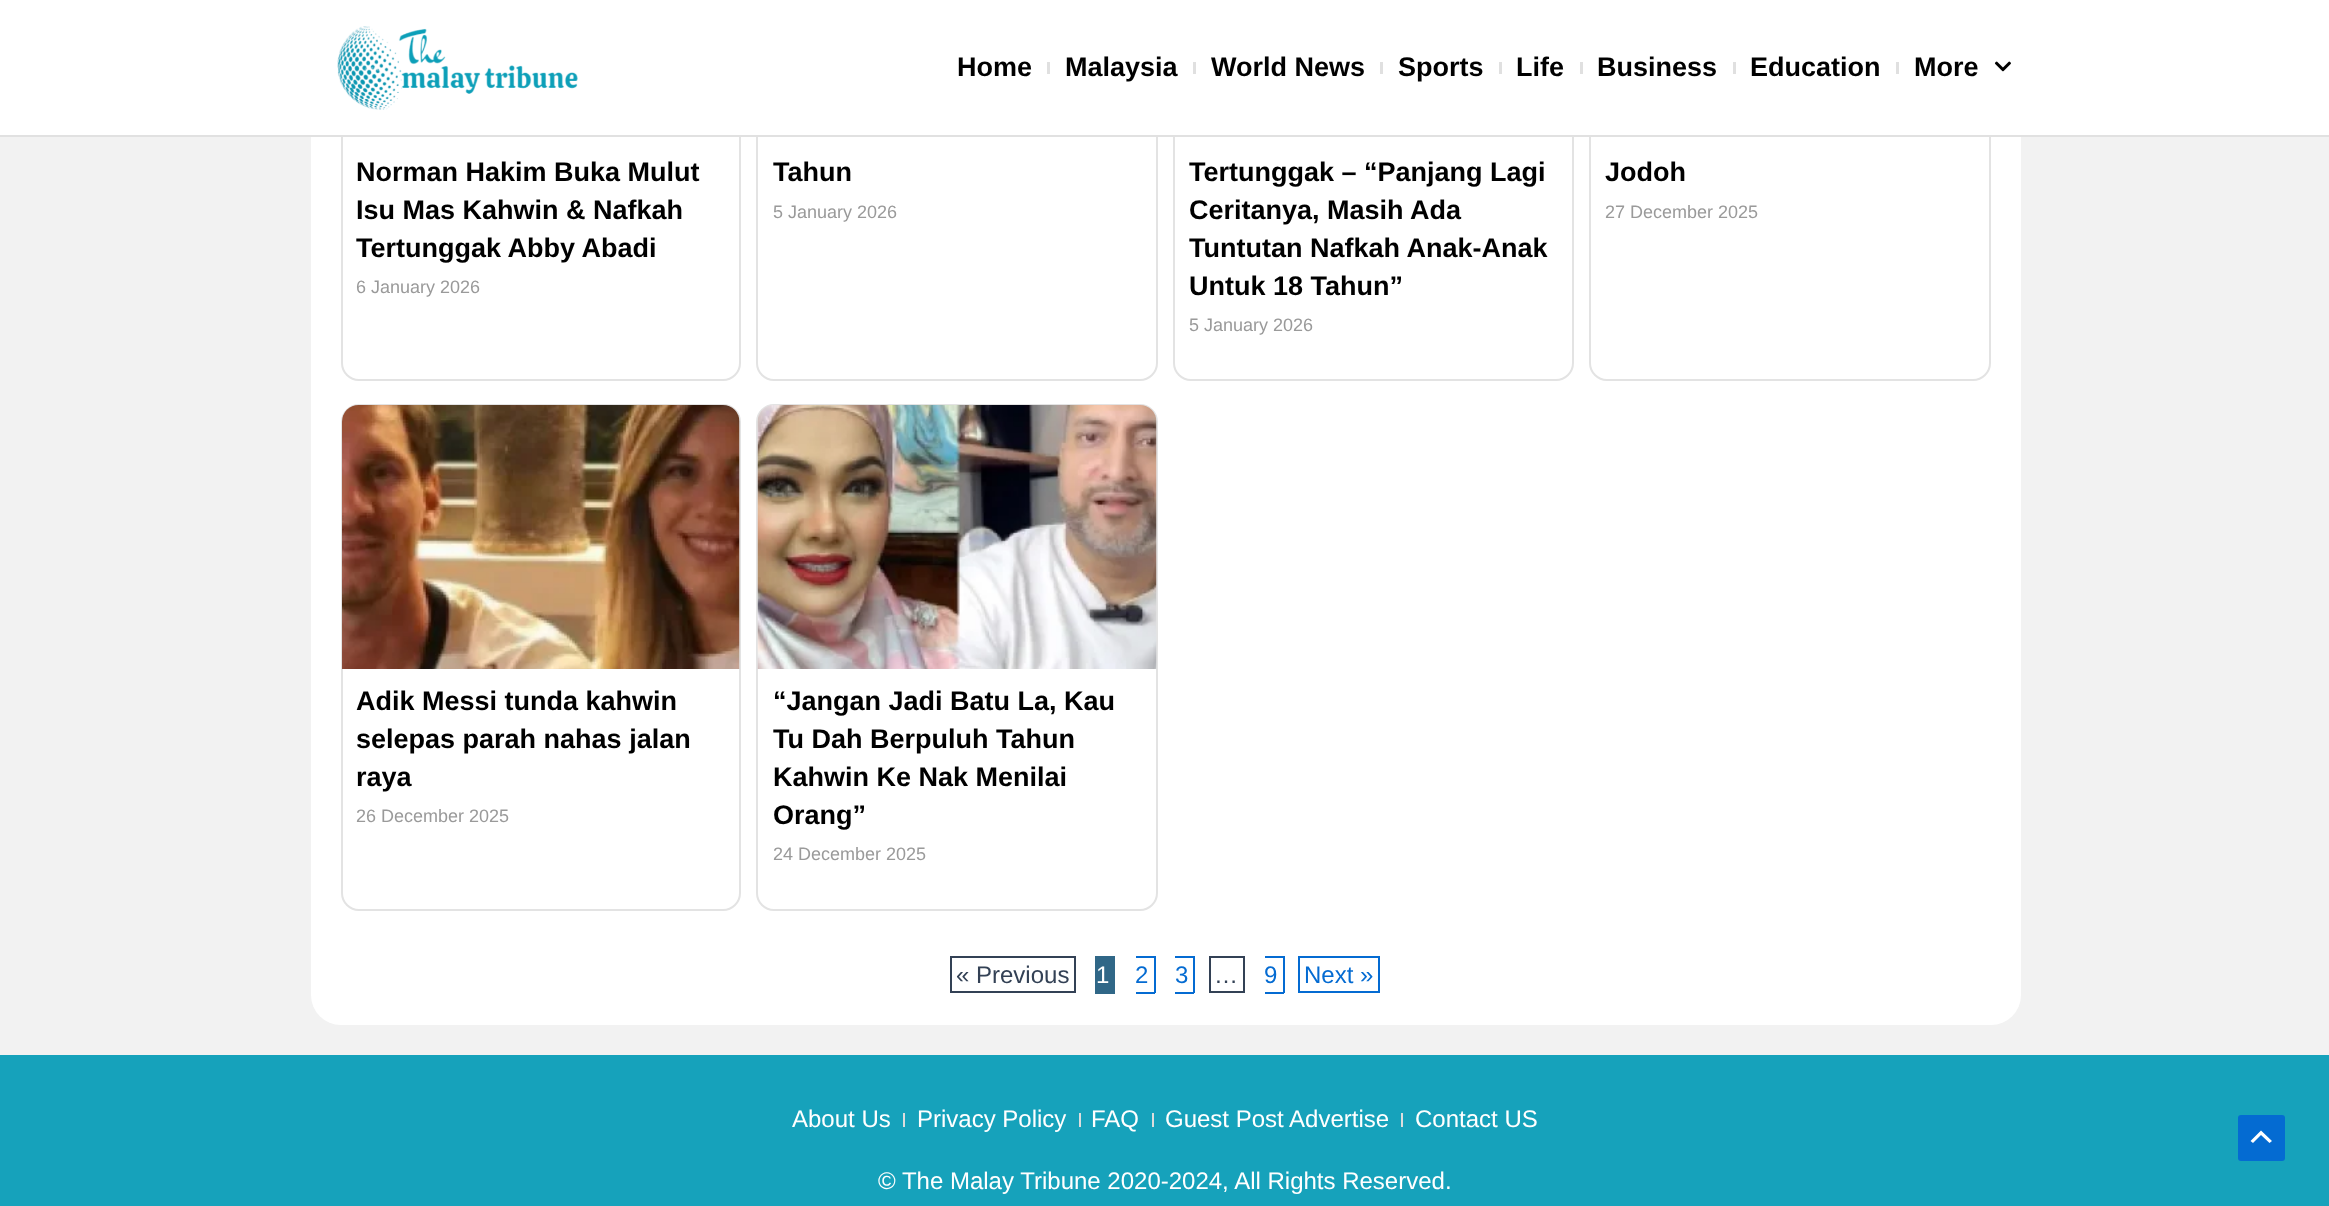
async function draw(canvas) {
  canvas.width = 2329;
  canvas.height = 1206;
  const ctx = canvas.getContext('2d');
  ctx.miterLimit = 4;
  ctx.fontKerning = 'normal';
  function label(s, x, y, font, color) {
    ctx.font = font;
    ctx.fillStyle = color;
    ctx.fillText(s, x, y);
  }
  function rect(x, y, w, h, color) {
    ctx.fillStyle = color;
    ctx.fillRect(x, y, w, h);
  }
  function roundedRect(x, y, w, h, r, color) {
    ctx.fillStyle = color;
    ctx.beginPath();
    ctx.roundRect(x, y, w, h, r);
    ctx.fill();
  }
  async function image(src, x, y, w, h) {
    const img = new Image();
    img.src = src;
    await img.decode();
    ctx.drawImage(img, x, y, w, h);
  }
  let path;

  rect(0, 0, 2329, 1206, '#f2f2f2');
  roundedRect(311, -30, 1710, 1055, 30, '#fff');
  ctx.beginPath();
  ctx.roundRect(342, -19, 398, 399, 17);
  ctx.strokeStyle = '#e3e3e3';
  ctx.lineWidth = 2;
  ctx.stroke();
  ctx.beginPath();
  ctx.roundRect(757, -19, 400, 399, 17);
  ctx.stroke();
  ctx.beginPath();
  ctx.roundRect(1174, -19, 399, 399, 17);
  ctx.stroke();
  ctx.beginPath();
  ctx.roundRect(1590, -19, 400, 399, 17);
  ctx.stroke();
  rect(0, 0, 2329, 135, '#fff');
  rect(0, 135, 2329, 2, '#e1e1e1');
  await image('assets/img1.png', 337, 26, 241, 84);
  label('Home', 957, 76, 'bold 27px Liberation Sans', '#000');
  rect(1047, 62, 3, 12, '#e0e0e0');
  label('Malaysia', 1065, 76, 'bold 27px Liberation Sans', '#000');
  rect(1193, 62, 3, 12, '#e0e0e0');
  label('World News', 1211, 76, 'bold 27px Liberation Sans', '#000');
  rect(1380, 62, 3, 12, '#e0e0e0');
  label('Sports', 1398, 76, 'bold 27px Liberation Sans', '#000');
  rect(1499, 62, 3, 12, '#e0e0e0');
  label('Life', 1516, 76, 'bold 27px Liberation Sans', '#000');
  rect(1580, 62, 3, 12, '#e0e0e0');
  label('Business', 1597, 76, 'bold 27px Liberation Sans', '#000');
  rect(1733, 62, 3, 12, '#e0e0e0');
  label('Education', 1750, 76, 'bold 27px Liberation Sans', '#000');
  rect(1896, 62, 3, 12, '#e0e0e0');
  label('More', 1914, 76, 'bold 27px Liberation Sans', '#000');
  await image('assets/img2.png', 1994, 61, 17, 11);
  label('Norman Hakim Buka Mulut', 356, 181, 'bold 27px Liberation Sans', '#000');
  label('Isu Mas Kahwin & Nafkah', 356, 219, 'bold 27px Liberation Sans', '#000');
  label('Tertunggak Abby Abadi', 356, 257, 'bold 27px Liberation Sans', '#000');
  label('6 January 2026', 356, 293, '18px Liberation Sans', '#9a9a9a');
  label('Tahun', 773, 181, 'bold 27px Liberation Sans', '#000');
  label('5 January 2026', 773, 218, '18px Liberation Sans', '#9a9a9a');
  label('Tertunggak – “Panjang Lagi', 1189, 181, 'bold 27px Liberation Sans', '#000');
  label('Ceritanya, Masih Ada', 1189, 219, 'bold 27px Liberation Sans', '#000');
  label('Tuntutan Nafkah Anak-Anak', 1189, 257, 'bold 27px Liberation Sans', '#000');
  label('Untuk 18 Tahun”', 1189, 295, 'bold 27px Liberation Sans', '#000');
  label('5 January 2026', 1189, 331, '18px Liberation Sans', '#9a9a9a');
  label('Jodoh', 1605, 181, 'bold 27px Liberation Sans', '#000');
  label('27 December 2025', 1605, 218, '18px Liberation Sans', '#9a9a9a');
  ctx.beginPath();
  ctx.roundRect(342, 405, 398, 505, 17);
  ctx.stroke();
  await image('assets/img3.png', 342, 405, 398, 264);
  label('Adik Messi tunda kahwin', 356, 710, 'bold 27px Liberation Sans', '#000');
  label('selepas parah nahas jalan', 356, 748, 'bold 27px Liberation Sans', '#000');
  label('raya', 356, 786, 'bold 27px Liberation Sans', '#000');
  label('26 December 2025', 356, 822, '18px Liberation Sans', '#9a9a9a');
  ctx.beginPath();
  ctx.roundRect(757, 405, 400, 505, 17);
  ctx.stroke();
  await image('assets/img4.png', 757, 405, 400, 264);
  label('“Jangan Jadi Batu La, Kau', 773, 710, 'bold 27px Liberation Sans', '#000');
  label('Tu Dah Berpuluh Tahun', 773, 748, 'bold 27px Liberation Sans', '#000');
  label('Kahwin Ke Nak Menilai', 773, 786, 'bold 27px Liberation Sans', '#000');
  label('Orang”', 773, 824, 'bold 27px Liberation Sans', '#000');
  label('24 December 2025', 773, 860, '18px Liberation Sans', '#9a9a9a');
  ctx.strokeStyle = '#334155';
  ctx.strokeRect(951, 957, 124, 35);
  label('« Previous', 956, 983, '24px Liberation Sans', '#334155');
  rect(1095, 956, 20, 38, '#306787');
  label('1', 1096, 983, '24px Liberation Sans', '#fff');
  label('2', 1135, 983, '24px Liberation Sans', '#046bd2');
  rect(1136, 956, 19, 2, '#046bd2');
  rect(1154, 956, 2, 37, '#046bd2');
  rect(1136, 992, 19, 2, '#046bd2');
  label('3', 1175, 983, '24px Liberation Sans', '#046bd2');
  rect(1175, 956, 19, 2, '#046bd2');
  rect(1193, 956, 2, 37, '#046bd2');
  rect(1175, 992, 19, 2, '#046bd2');
  ctx.strokeRect(1210, 957, 34, 35);
  label('…', 1214, 983, '24px Liberation Sans', '#334155');
  label('9', 1264, 983, '24px Liberation Sans', '#046bd2');
  rect(1265, 956, 19, 2, '#046bd2');
  rect(1283, 956, 2, 37, '#046bd2');
  rect(1265, 992, 19, 2, '#046bd2');
  ctx.strokeStyle = '#046bd2';
  ctx.strokeRect(1299, 957, 80, 35);
  label('Next »', 1304, 983, '24px Liberation Sans', '#046bd2');
  rect(0, 1055, 2329, 151, '#16a2bb');
  label('About Us', 792, 1127, '24px Liberation Sans', '#fff');
  rect(903, 1113, 2, 14, '#ddd');
  label('Privacy Policy', 917, 1127, '24px Liberation Sans', '#fff');
  rect(1079, 1113, 2, 14, '#ddd');
  label('FAQ', 1091, 1127, '24px Liberation Sans', '#fff');
  rect(1152, 1113, 2, 14, '#ddd');
  label('Guest Post Advertise', 1165, 1127, '24px Liberation Sans', '#fff');
  rect(1401, 1113, 2, 14, '#ddd');
  label('Contact US', 1415, 1127, '24px Liberation Sans', '#fff');
  label('© The Malay Tribune 2020-2024, All Rights Reserved.', 878, 1189, '24px Liberation Sans', '#fff');
  roundedRect(2238, 1115, 47, 46, 3, '#046bd2');
  ctx.fillStyle = '#fff';
  path = new Path2D('M2272 1141L2261 1130.5L2250.5 1141L2253 1143L2261 1135L2269.5 1143Z');
  ctx.fill(path);
}

draw(document.querySelector('canvas'));
